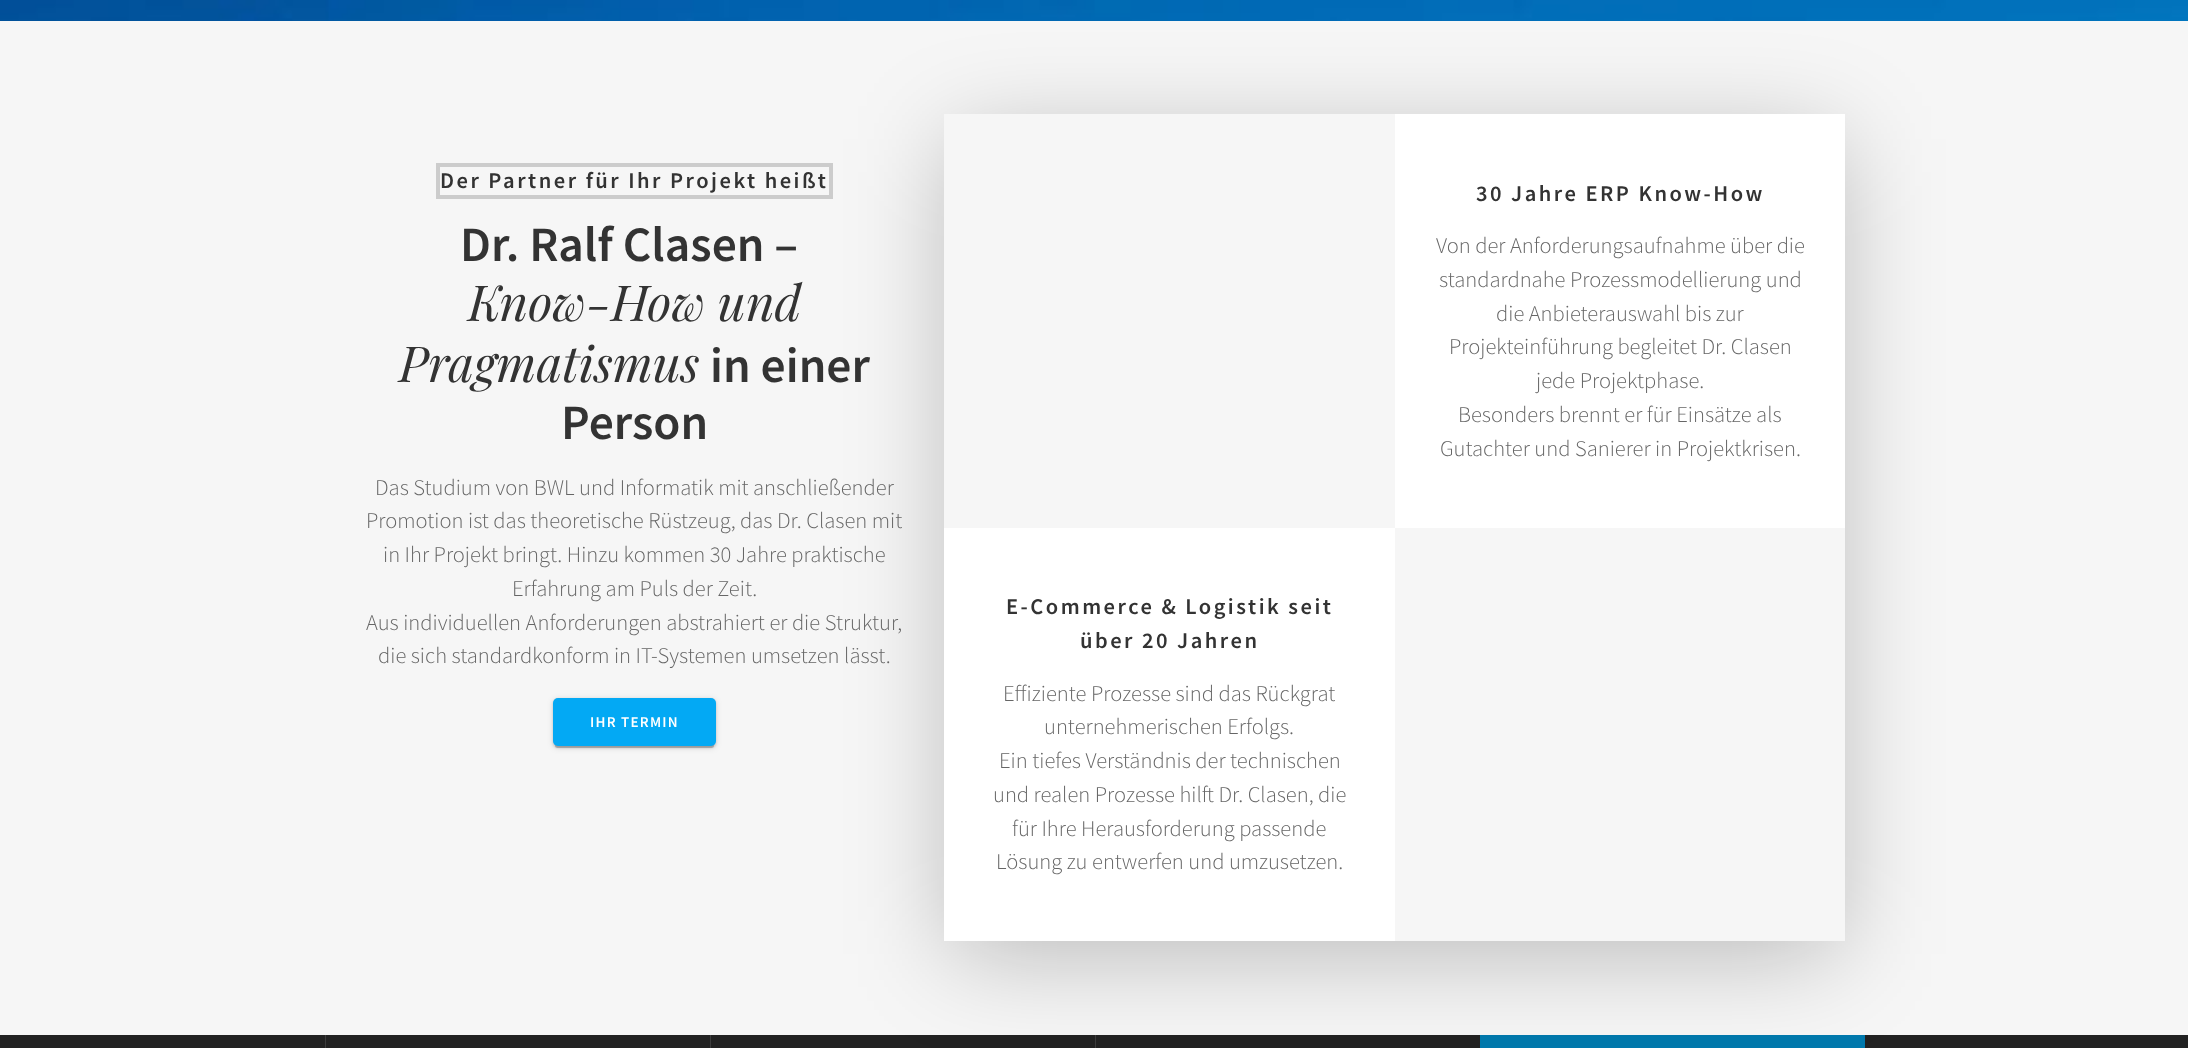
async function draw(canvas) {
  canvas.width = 2188;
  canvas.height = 1048;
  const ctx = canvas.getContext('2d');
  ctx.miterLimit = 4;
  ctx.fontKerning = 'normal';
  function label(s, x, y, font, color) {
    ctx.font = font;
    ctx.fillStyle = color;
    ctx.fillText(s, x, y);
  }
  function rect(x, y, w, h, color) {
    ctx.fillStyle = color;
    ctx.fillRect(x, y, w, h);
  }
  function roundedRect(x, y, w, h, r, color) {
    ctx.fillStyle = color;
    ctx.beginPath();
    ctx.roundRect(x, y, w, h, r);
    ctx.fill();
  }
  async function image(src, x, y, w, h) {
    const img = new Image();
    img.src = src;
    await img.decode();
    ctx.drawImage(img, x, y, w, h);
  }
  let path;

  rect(0, 0, 2188, 1048, '#222');
  rect(0, 21, 2188, 1014, '#f6f6f6');
  ctx.strokeStyle = '#ccc';
  ctx.lineWidth = 4;
  ctx.strokeRect(438, 165, 393, 32);
  rect(1095, 1035, 1, 13, '#3d3d3d');
  rect(1480, 1035, 385, 13, '#0079ad');
  ctx.save();
  path = new Path2D('M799 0H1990V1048H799ZM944 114H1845V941H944Z');
  ctx.clip(path, 'evenodd');
  ctx.fillStyle = '#00000040';
  ctx.filter = 'blur(50px)';
  ctx.beginPath();
  ctx.rect(950, 139, 889, 815);
  ctx.fill();
  ctx.filter = 'none';
  ctx.restore();
  await image('assets/img1.png', 0, 0, 2188, 21);
  ctx.letterSpacing = '2.5px';
  label('Der Partner für Ihr Projekt heißt', 440, 188, '600 22.5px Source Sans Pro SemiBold', '#333');
  ctx.letterSpacing = '0px';
  label('Dr. Ralf Clasen –', 460, 261, '600 49.5px Source Sans Pro SemiBold', '#333');
  label('Know-How und', 468, 321, 'italic 49.5px Playfair Display', '#333');
  label('Pragmatismus', 399, 382, 'italic 49.5px Playfair Display', '#333');
  label('in einer', 710, 382, '600 49.5px Source Sans Pro SemiBold', '#333');
  label('Person', 561, 439, '600 49.5px Source Sans Pro SemiBold', '#333');
  label('Das Studium von BWL und Informatik mit anschließender', 375, 495, '300 22.5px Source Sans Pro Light', '#666');
  label('Promotion ist das theoretische Rüstzeug, das Dr. Clasen mit', 366, 528, '300 22.5px Source Sans Pro Light', '#666');
  label('in Ihr Projekt bringt. Hinzu kommen 30 Jahre praktische', 383, 562, '300 22.5px Source Sans Pro Light', '#666');
  label('Erfahrung am Puls der Zeit.', 512, 596, '300 22.5px Source Sans Pro Light', '#666');
  label('Aus individuellen Anforderungen abstrahiert er die Struktur,', 366, 630, '300 22.5px Source Sans Pro Light', '#666');
  label('die sich standardkonform in IT-Systemen umsetzen lässt.', 378, 663, '300 22.5px Source Sans Pro Light', '#666');
  ctx.fillStyle = '#0000001f';
  ctx.filter = 'blur(3px)';
  ctx.beginPath();
  ctx.roundRect(553, 699, 163, 49, 5);
  ctx.fill();
  ctx.filter = 'none';
  ctx.fillStyle = '#00000033';
  ctx.filter = 'blur(0.5px)';
  ctx.beginPath();
  ctx.roundRect(555, 704, 159, 44, 2.5);
  ctx.fill();
  ctx.filter = 'none';
  ctx.fillStyle = '#00000024';
  ctx.filter = 'blur(1px)';
  ctx.beginPath();
  ctx.roundRect(553, 699, 163, 49, 5);
  ctx.fill();
  ctx.filter = 'none';
  roundedRect(553, 698, 163, 48, 5, '#03a9f4');
  ctx.letterSpacing = '1.25px';
  label('IHR TERMIN', 590, 727, '600 15px Source Sans Pro SemiBold', '#fff');
  rect(1395, 114, 450, 414, '#fff');
  ctx.letterSpacing = '2.5px';
  label('30 Jahre ERP Know-How', 1476, 201, '600 22.5px Source Sans Pro SemiBold', '#333');
  ctx.letterSpacing = '0px';
  label('Von der Anforderungsaufnahme über die', 1436, 253, '300 22.5px Source Sans Pro Light', '#666');
  label('standardnahe Prozessmodellierung und', 1439, 287, '300 22.5px Source Sans Pro Light', '#666');
  label('die Anbieterauswahl bis zur', 1496, 321, '300 22.5px Source Sans Pro Light', '#666');
  label('Projekteinführung begleitet Dr. Clasen', 1449, 354, '300 22.5px Source Sans Pro Light', '#666');
  label('jede Projektphase.', 1536, 388, '300 22.5px Source Sans Pro Light', '#666');
  label('Besonders brennt er für Einsätze als', 1458, 422, '300 22.5px Source Sans Pro Light', '#666');
  label('Gutachter und Sanierer in Projektkrisen.', 1440, 456, '300 22.5px Source Sans Pro Light', '#666');
  rect(944, 528, 451, 413, '#fff');
  ctx.letterSpacing = '2.5px';
  label('E-Commerce & Logistik seit', 1006, 614, '600 22.5px Source Sans Pro SemiBold', '#333');
  label('über 20 Jahren', 1080, 648, '600 22.5px Source Sans Pro SemiBold', '#333');
  ctx.letterSpacing = '0px';
  label('Effiziente Prozesse sind das Rückgrat', 1003, 701, '300 22.5px Source Sans Pro Light', '#666');
  label('unternehmerischen Erfolgs.', 1044, 734, '300 22.5px Source Sans Pro Light', '#666');
  label('Ein tiefes Verständnis der technischen', 999, 768, '300 22.5px Source Sans Pro Light', '#666');
  label('und realen Prozesse hilft Dr. Clasen, die', 993, 802, '300 22.5px Source Sans Pro Light', '#666');
  label('für Ihre Herausforderung passende', 1012, 836, '300 22.5px Source Sans Pro Light', '#666');
  label('Lösung zu entwerfen und umzusetzen.', 996, 869, '300 22.5px Source Sans Pro Light', '#666');
  rect(325, 1035, 1, 13, '#3d3d3d');
  rect(710, 1035, 1, 13, '#3d3d3d');
}

draw(document.querySelector('canvas'));
